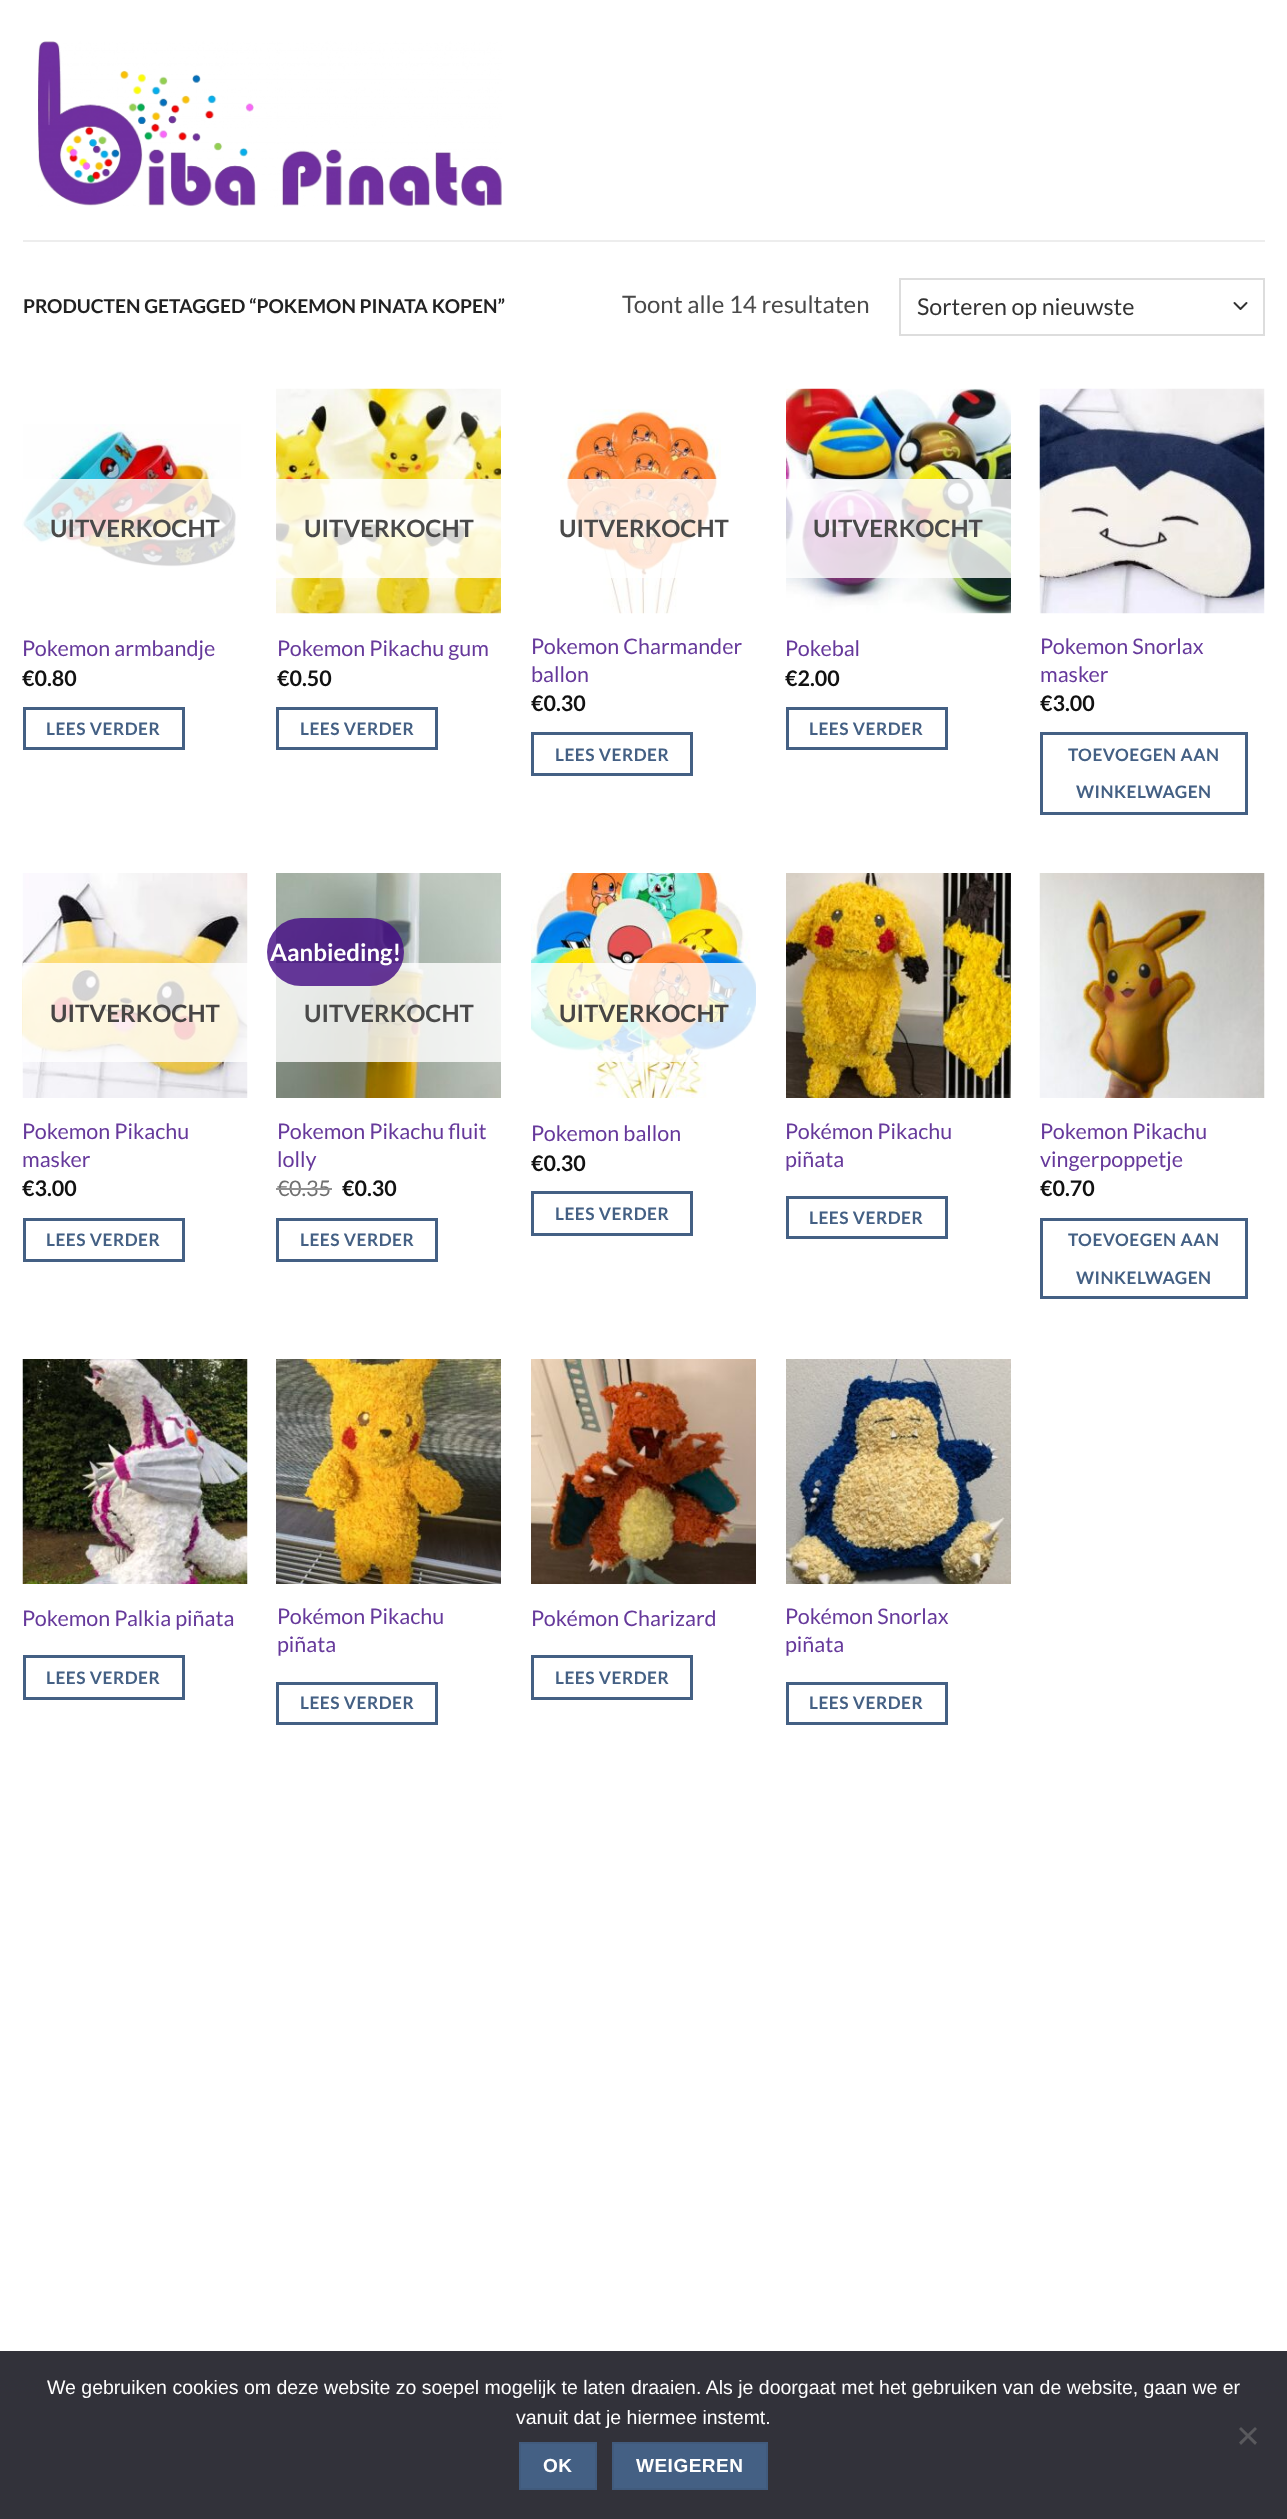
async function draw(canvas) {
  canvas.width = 1287;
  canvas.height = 2519;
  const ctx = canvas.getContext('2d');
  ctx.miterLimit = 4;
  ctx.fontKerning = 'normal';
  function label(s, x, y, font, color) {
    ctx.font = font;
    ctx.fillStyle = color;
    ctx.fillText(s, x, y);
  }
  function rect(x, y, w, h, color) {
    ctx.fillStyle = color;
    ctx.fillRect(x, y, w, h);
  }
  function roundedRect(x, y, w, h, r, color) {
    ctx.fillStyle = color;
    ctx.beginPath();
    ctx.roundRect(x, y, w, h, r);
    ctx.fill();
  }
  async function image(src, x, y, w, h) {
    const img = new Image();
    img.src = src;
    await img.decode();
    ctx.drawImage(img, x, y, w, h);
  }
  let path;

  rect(0, 0, 1287, 2519, '#fff');
  await image('assets/img1.png', 38, 41, 464, 166);
  rect(23, 240, 1242, 2, '#ededed');
  label('PRODUCTEN GETAGGED “POKEMON PINATA KOPEN”', 23, 313, 'bold 19.2px Lato', '#222');
  label('Toont alle 14 resultaten', 622, 313, '24px Lato', '#4a4a4a');
  path = new Path2D('M1234.5 303L1240.5 309L1246.5 303');
  ctx.strokeStyle = '#333';
  ctx.lineWidth = 2;
  ctx.lineCap = 'round';
  ctx.lineJoin = 'round';
  ctx.stroke(path);
  ctx.strokeStyle = '#ddd';
  ctx.lineJoin = 'miter';
  ctx.strokeRect(900, 279, 364, 56);
  label('Sorteren op nieuwste', 917, 315, '23.25px Lato', '#333');
  await image('assets/img2.png', 22, 424, 219, 147);
  rect(23, 479, 218, 92, '#ffffffcf');
  label('UITVERKOCHT', 50, 537, 'bold 24px Lato', '#4a4a4a');
  label('Pokemon armbandje', 22, 656, '21.5px Lato', '#66399b');
  label('€0.80', 22, 686, 'bold 21.5px Lato', '#111');
  ctx.strokeStyle = '#446084';
  ctx.lineWidth = 3;
  ctx.strokeRect(24.5, 708.5, 159, 40);
  ctx.letterSpacing = '0.5px';
  label('LEES VERDER', 46, 735, 'bold 17.25px Lato', '#446084');
  await image('assets/img3.png', 276, 388, 225, 226);
  rect(276, 479, 225, 99, '#ffffffcf');
  ctx.letterSpacing = '0px';
  label('UITVERKOCHT', 304, 537, 'bold 24px Lato', '#4a4a4a');
  label('Pokemon Pikachu gum', 277, 656, '21.5px Lato', '#66399b');
  label('€0.50', 277, 686, 'bold 21.5px Lato', '#111');
  ctx.strokeRect(277.5, 708.5, 159, 40);
  ctx.letterSpacing = '0.5px';
  label('LEES VERDER', 300, 735, 'bold 17.25px Lato', '#446084');
  await image('assets/img4.png', 560, 409, 161, 205);
  rect(560, 479, 161, 99, '#ffffffcf');
  ctx.letterSpacing = '0px';
  label('UITVERKOCHT', 559, 537, 'bold 24px Lato', '#4a4a4a');
  label('Pokemon Charmander', 531, 654, '21.5px Lato', '#66399b');
  label('ballon', 531, 682, '21.5px Lato', '#66399b');
  label('€0.30', 531, 711, 'bold 21.5px Lato', '#111');
  ctx.strokeRect(532.5, 733.5, 159, 41);
  ctx.letterSpacing = '0.5px';
  label('LEES VERDER', 555, 761, 'bold 17.25px Lato', '#446084');
  await image('assets/img5.png', 786, 388, 225, 226);
  rect(786, 479, 225, 99, '#ffffffcf');
  ctx.letterSpacing = '0px';
  label('UITVERKOCHT', 813, 537, 'bold 24px Lato', '#4a4a4a');
  label('Pokebal', 785, 656, '21.5px Lato', '#66399b');
  label('€2.00', 785, 686, 'bold 21.5px Lato', '#111');
  ctx.strokeRect(787.5, 708.5, 159, 40);
  ctx.letterSpacing = '0.5px';
  label('LEES VERDER', 809, 735, 'bold 17.25px Lato', '#446084');
  await image('assets/img6.png', 1039, 388, 226, 226);
  ctx.letterSpacing = '0px';
  label('Pokemon Snorlax', 1040, 654, '21.5px Lato', '#66399b');
  label('masker', 1040, 682, '21.5px Lato', '#66399b');
  label('€3.00', 1040, 711, 'bold 21.5px Lato', '#111');
  ctx.strokeRect(1041.5, 733.5, 205, 80);
  ctx.letterSpacing = '0.5px';
  label('TOEVOEGEN AAN', 1068, 761, 'bold 17.25px Lato', '#446084');
  label('WINKELWAGEN', 1076, 798, 'bold 17.25px Lato', '#446084');
  await image('assets/img7.png', 22, 873, 226, 225);
  rect(23, 963, 225, 99, '#ffffffcf');
  ctx.letterSpacing = '0px';
  label('UITVERKOCHT', 50, 1022, 'bold 24px Lato', '#474544');
  label('Pokemon Pikachu', 22, 1139, '21.5px Lato', '#66399b');
  label('masker', 22, 1167, '21.5px Lato', '#66399b');
  label('€3.00', 22, 1196, 'bold 21.5px Lato', '#111');
  ctx.strokeRect(24.5, 1219.5, 159, 41);
  ctx.letterSpacing = '0.5px';
  label('LEES VERDER', 46, 1246, 'bold 17.25px Lato', '#446084');
  await image('assets/img8.png', 276, 873, 225, 225);
  rect(276, 963, 225, 99, '#ffffffcf');
  roundedRect(267, 918, 137, 68, 34, '#450e85d1');
  ctx.letterSpacing = '0px';
  label('Aanbieding!', 270, 961, 'bold 24px Lato', '#fff');
  label('UITVERKOCHT', 304, 1022, 'bold 24px Lato', '#4a4a4a');
  label('Pokemon Pikachu fluit', 277, 1139, '21.5px Lato', '#66399b');
  label('lolly', 277, 1167, '21.5px Lato', '#66399b');
  label('€', 277, 1196, '21.5px Lato', '#707070');
  rect(276, 1188, 14, 2, '#929292');
  label('0.35', 289, 1196, '21.5px Lato', '#707070');
  rect(290, 1188, 42, 2, '#929292');
  label('€0.30', 342, 1196, 'bold 21.5px Lato', '#111');
  ctx.strokeRect(277.5, 1219.5, 159, 41);
  ctx.letterSpacing = '0.5px';
  label('LEES VERDER', 300, 1246, 'bold 17.25px Lato', '#446084');
  await image('assets/img9.png', 531, 873, 225, 225);
  rect(531, 963, 225, 99, '#ffffffcf');
  ctx.letterSpacing = '0px';
  label('UITVERKOCHT', 559, 1022, 'bold 24px Lato', '#474544');
  label('Pokemon ballon', 531, 1141, '21.5px Lato', '#66399b');
  label('€0.30', 531, 1171, 'bold 21.5px Lato', '#111');
  ctx.strokeRect(532.5, 1192.5, 159, 42);
  ctx.letterSpacing = '0.5px';
  label('LEES VERDER', 555, 1220, 'bold 17.25px Lato', '#446084');
  await image('assets/img10.png', 786, 873, 225, 225);
  ctx.letterSpacing = '0px';
  label('Pokémon Pikachu', 785, 1139, '21.5px Lato', '#66399b');
  label('piñata', 785, 1167, '21.5px Lato', '#66399b');
  ctx.strokeRect(787.5, 1197.5, 159, 40);
  ctx.letterSpacing = '0.5px';
  label('LEES VERDER', 809, 1224, 'bold 17.25px Lato', '#446084');
  await image('assets/img11.png', 1039, 873, 226, 225);
  ctx.letterSpacing = '0px';
  label('Pokemon Pikachu', 1040, 1139, '21.5px Lato', '#66399b');
  label('vingerpoppetje', 1040, 1167, '21.5px Lato', '#66399b');
  label('€0.70', 1040, 1196, 'bold 21.5px Lato', '#111');
  ctx.strokeRect(1041.5, 1219.5, 205, 78);
  ctx.letterSpacing = '0.5px';
  label('TOEVOEGEN AAN', 1068, 1246, 'bold 17.25px Lato', '#446084');
  label('WINKELWAGEN', 1076, 1284, 'bold 17.25px Lato', '#446084');
  await image('assets/img12.png', 22, 1359, 226, 225);
  ctx.letterSpacing = '0px';
  label('Pokemon Palkia piñata', 22, 1626, '21.5px Lato', '#66399b');
  ctx.strokeRect(24.5, 1656.5, 159, 42);
  ctx.letterSpacing = '0.5px';
  label('LEES VERDER', 46, 1684, 'bold 17.25px Lato', '#446084');
  await image('assets/img13.png', 276, 1359, 225, 225);
  ctx.letterSpacing = '0px';
  label('Pokémon Pikachu', 277, 1624, '21.5px Lato', '#66399b');
  label('piñata', 277, 1652, '21.5px Lato', '#66399b');
  ctx.strokeRect(277.5, 1683.5, 159, 40);
  ctx.letterSpacing = '0.5px';
  label('LEES VERDER', 300, 1709, 'bold 17.25px Lato', '#446084');
  await image('assets/img14.png', 531, 1359, 225, 225);
  ctx.letterSpacing = '0px';
  label('Pokémon Charizard', 531, 1626, '21.5px Lato', '#66399b');
  ctx.strokeRect(532.5, 1656.5, 159, 42);
  ctx.letterSpacing = '0.5px';
  label('LEES VERDER', 555, 1684, 'bold 17.25px Lato', '#446084');
  await image('assets/img15.png', 786, 1359, 225, 225);
  ctx.letterSpacing = '0px';
  label('Pokémon Snorlax', 785, 1624, '21.5px Lato', '#66399b');
  label('piñata', 785, 1652, '21.5px Lato', '#66399b');
  ctx.strokeRect(787.5, 1683.5, 159, 40);
  ctx.letterSpacing = '0.5px';
  label('LEES VERDER', 809, 1709, 'bold 17.25px Lato', '#446084');
  rect(0, 2351, 1287, 168, '#32323a');
  ctx.letterSpacing = '0px';
  label('We gebruiken cookies om deze website zo soepel mogelijk te laten draaien. Als je doorgaat met het gebruiken van de website, gaan we er', 47, 2394, '19.5px Liberation Sans', '#fff');
  label('vanuit dat je hiermee instemt.', 516, 2424, '19.5px Liberation Sans', '#fff');
  ctx.fillStyle = '#59595d';
  path = new Path2D('M1255 2427L1257 2429L1241 2445L1239 2442.5Z');
  ctx.fill(path);
  path = new Path2D('M1239 2429L1241 2427L1257 2442.5L1255 2445Z');
  ctx.fill(path);
  ctx.fillStyle = '#446084';
  ctx.beginPath();
  ctx.rect(520, 2443, 76, 46);
  ctx.fill();
  ctx.strokeStyle = '#415b7d';
  ctx.lineWidth = 2;
  ctx.stroke();
  ctx.letterSpacing = '0.5px';
  label('OK', 543, 2472, 'bold 19px Liberation Sans', '#fff');
  ctx.fillStyle = '#446084';
  ctx.beginPath();
  ctx.rect(613, 2443, 154, 46);
  ctx.fill();
  ctx.stroke();
  label('WEIGEREN', 636, 2472, 'bold 19px Liberation Sans', '#fff');
}

draw(document.querySelector('canvas'));
